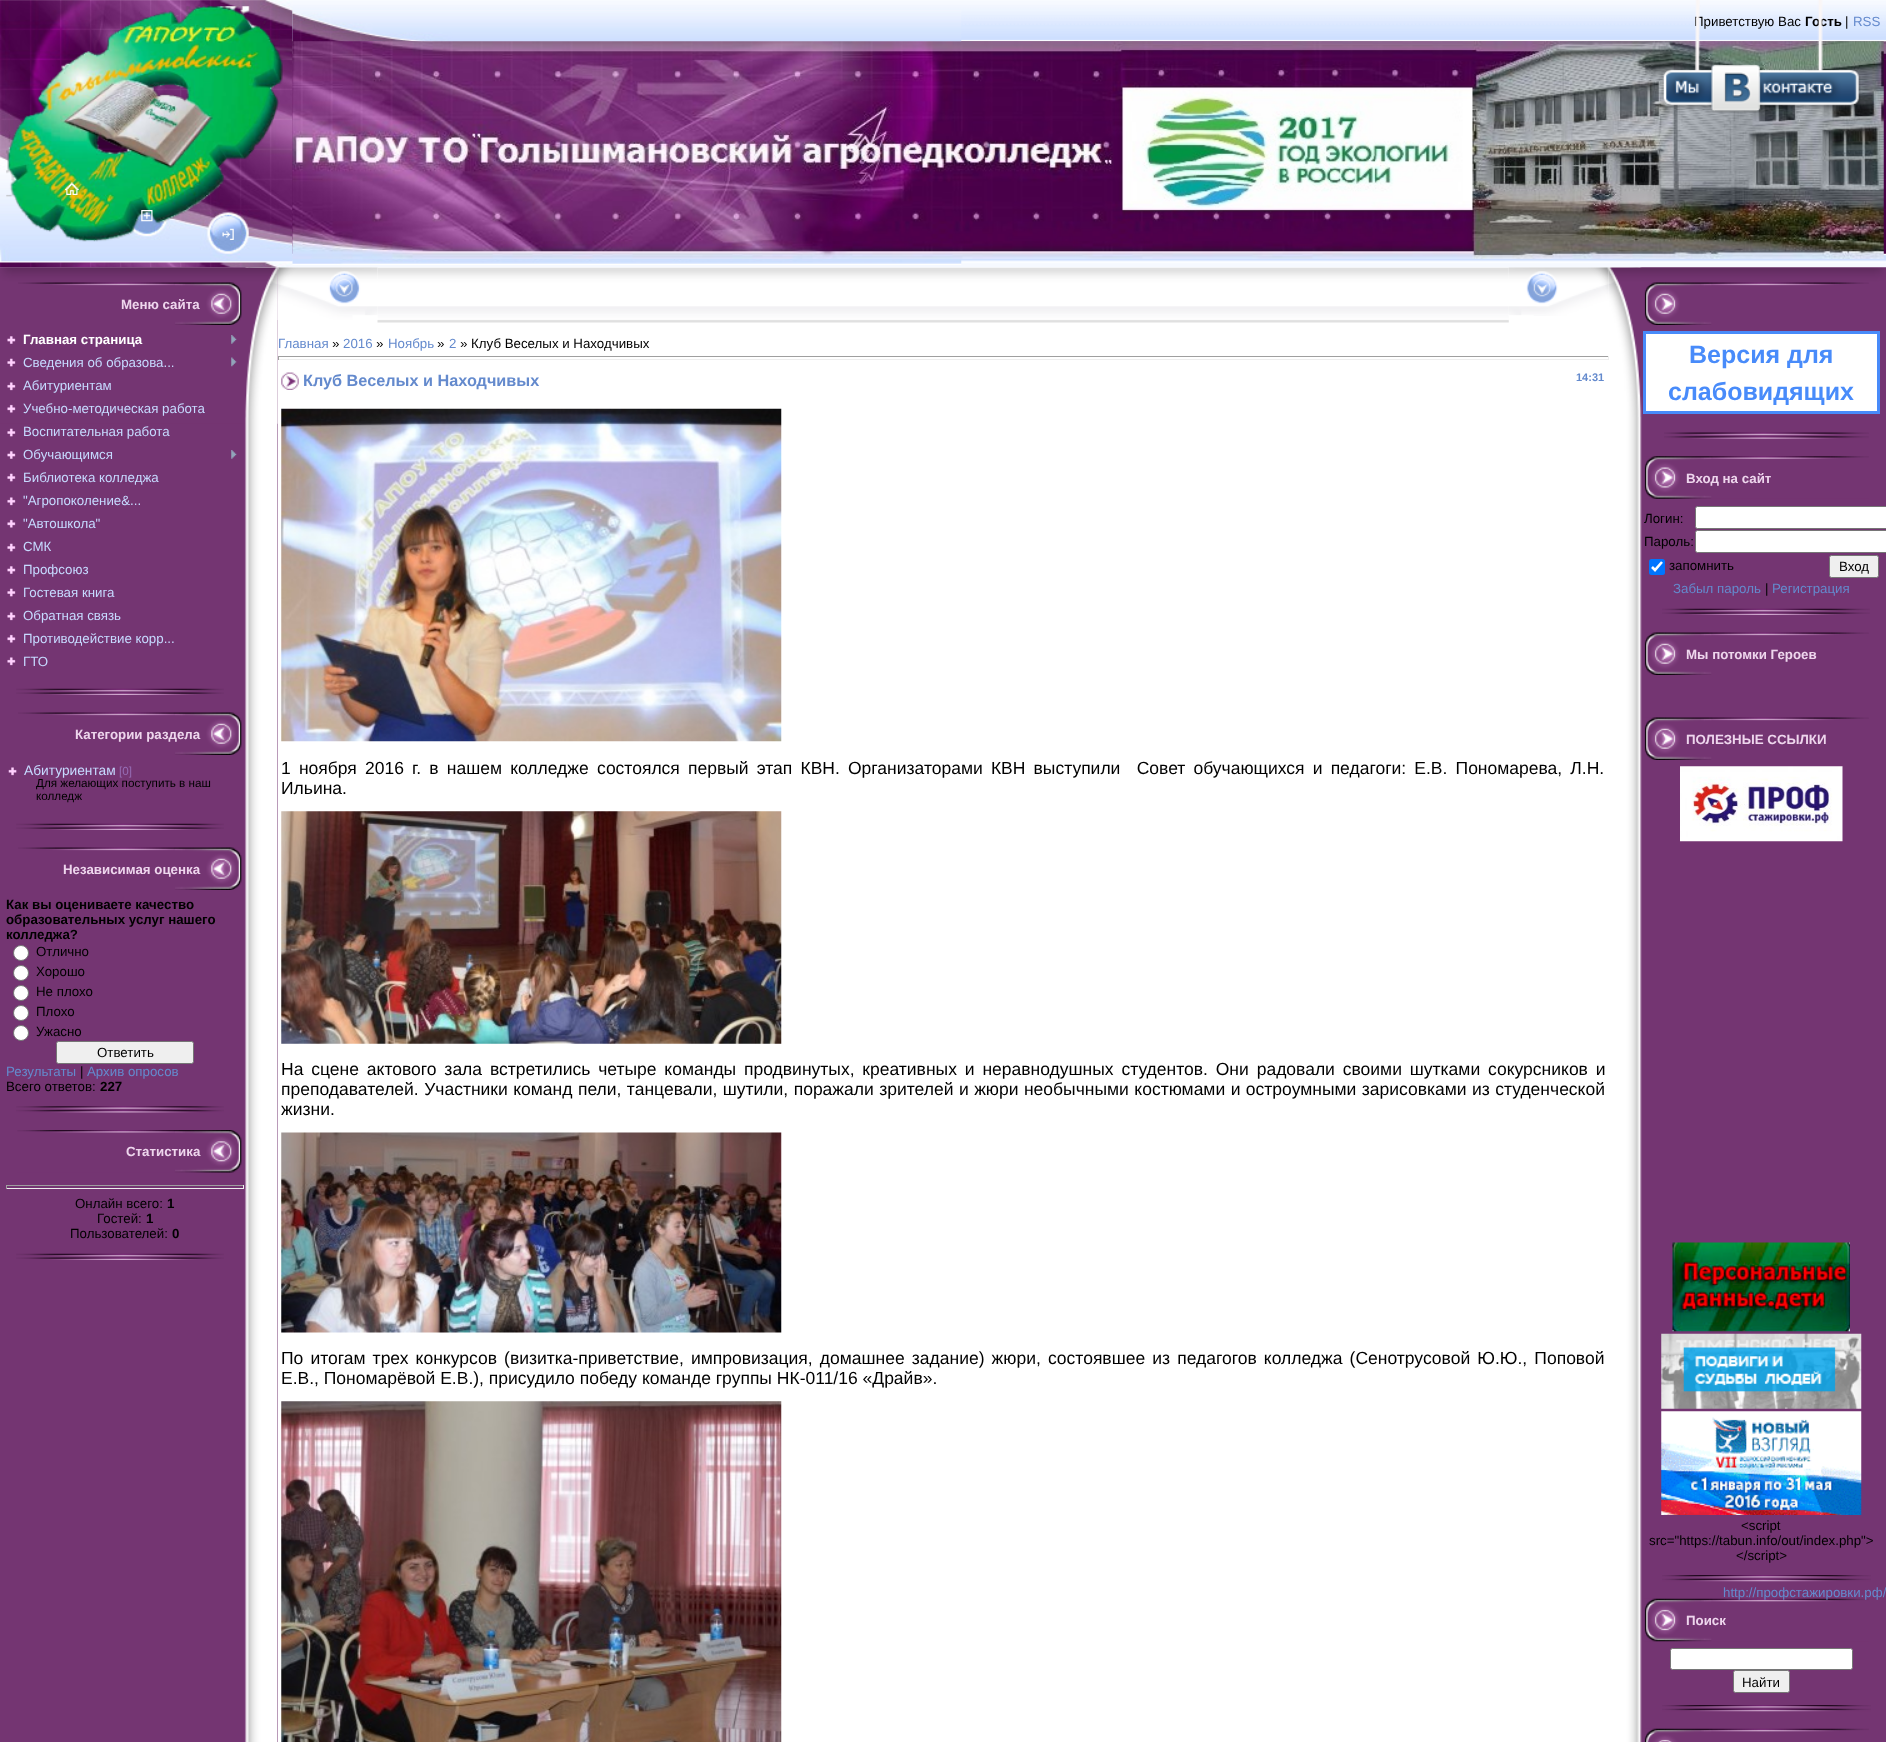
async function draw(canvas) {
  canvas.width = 1886;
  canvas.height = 1742;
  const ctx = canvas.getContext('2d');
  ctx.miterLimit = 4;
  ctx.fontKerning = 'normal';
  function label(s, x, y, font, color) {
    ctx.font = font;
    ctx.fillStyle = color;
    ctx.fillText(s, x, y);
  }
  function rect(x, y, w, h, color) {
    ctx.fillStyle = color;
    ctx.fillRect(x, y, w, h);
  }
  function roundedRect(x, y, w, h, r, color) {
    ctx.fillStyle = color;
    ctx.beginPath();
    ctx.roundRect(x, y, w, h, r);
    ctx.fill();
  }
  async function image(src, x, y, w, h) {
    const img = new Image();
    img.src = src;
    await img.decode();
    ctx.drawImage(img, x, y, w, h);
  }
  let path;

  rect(0, 0, 1886, 1742, '#fff');
  await image('assets/img2.png', 0, 0, 1886, 268);
  label('Приветствую Вас', 1694, 26, '13.3px Liberation Sans', '#000');
  label('Гость', 1805, 26, 'bold 13.3px Liberation Sans', '#000');
  label('|', 1845, 26, '13.3px Liberation Sans', '#000');
  label('RSS', 1853, 26, '13.3px Liberation Sans', '#648acd');
  await image('assets/img3.png', 0, 0, 293, 268);
  await image('assets/img5.png', 292, 10, 670, 255);
  await image('assets/img6.png', 292, 41, 1592, 218);
  await image('assets/img1.png', 1661, 0, 200, 113);
  await image('assets/img4.png', 6, 6, 277, 236);
  await image('assets/img7.png', 65, 182, 14, 13);
  await image('assets/img8.png', 141, 210, 12, 12);
  await image('assets/img9.png', 222, 228, 12, 12);
  rect(277, 268, 1, 1474, '#743572');
  await image('assets/img10.png', 0, 267, 278, 1475);
  await image('assets/img11.png', 0, 267, 278, 157);
  await image('assets/img12.png', 18, 282, 224, 43);
  label('Меню сайта', 121, 309, 'bold 13.3px Liberation Sans', '#eed6ed');
  await image('assets/img13.png', 7, 336, 9, 8);
  label('Главная страница', 23, 344, 'bold 13.3px Liberation Sans', '#fff');
  await image('assets/img14.png', 231, 335, 6, 9);
  await image('assets/img15.png', 7, 358, 9, 9);
  label('Сведения об образова...', 23, 367, '13.3px Liberation Sans', '#c6daff');
  await image('assets/img16.png', 231, 357, 6, 10);
  await image('assets/img17.png', 7, 382, 9, 9);
  label('Абитуриентам', 23, 390, '13.3px Liberation Sans', '#c6daff');
  await image('assets/img18.png', 7, 404, 9, 9);
  label('Учебно-методическая работа', 23, 413, '13.3px Liberation Sans', '#c6daff');
  await image('assets/img15.png', 7, 428, 9, 9);
  label('Воспитательная работа', 23, 436, '13.3px Liberation Sans', '#c6daff');
  await image('assets/img13.png', 7, 451, 9, 8);
  label('Обучающимся', 23, 459, '13.3px Liberation Sans', '#c6daff');
  await image('assets/img14.png', 231, 450, 6, 9);
  await image('assets/img15.png', 7, 473, 9, 9);
  label('Библиотека колледжа', 23, 482, '13.3px Liberation Sans', '#c6daff');
  await image('assets/img17.png', 7, 497, 9, 9);
  label('"Агропоколение&...', 23, 505, '13.3px Liberation Sans', '#c6daff');
  await image('assets/img18.png', 7, 519, 9, 9);
  label('"Автошкола"', 23, 528, '13.3px Liberation Sans', '#c6daff');
  await image('assets/img15.png', 7, 543, 9, 9);
  label('СМК', 23, 551, '13.3px Liberation Sans', '#c6daff');
  await image('assets/img13.png', 7, 566, 9, 8);
  label('Профсоюз', 23, 574, '13.3px Liberation Sans', '#c6daff');
  await image('assets/img15.png', 7, 588, 9, 9);
  label('Гостевая книга', 23, 597, '13.3px Liberation Sans', '#c6daff');
  await image('assets/img17.png', 7, 612, 9, 9);
  label('Обратная связь', 23, 620, '13.3px Liberation Sans', '#c6daff');
  await image('assets/img18.png', 7, 634, 9, 9);
  label('Противодействие корр...', 23, 643, '13.3px Liberation Sans', '#c6daff');
  await image('assets/img17.png', 7, 657, 9, 9);
  label('ГТО', 23, 666, '13.3px Liberation Sans', '#c6daff');
  await image('assets/img19.png', 16, 688, 208, 7);
  await image('assets/img20.png', 18, 712, 224, 43);
  label('Категории раздела', 75, 739, 'bold 13.3px Liberation Sans', '#eed6ed');
  await image('assets/img21.png', 8, 767, 9, 9);
  label('Абитуриентам', 24, 775, '13.75px Liberation Sans', '#c6daff');
  label('[0]', 119, 775, '11.7px Liberation Sans', '#966db5');
  label('Для желающих поступить в наш', 36, 787, '11.7px Liberation Sans', '#000');
  label('колледж', 36, 800, '11.7px Liberation Sans', '#000');
  await image('assets/img19.png', 16, 823, 208, 7);
  await image('assets/img20.png', 18, 847, 224, 43);
  label('Независимая оценка', 63, 874, 'bold 13.3px Liberation Sans', '#eed6ed');
  label('Как вы оцениваете качество', 6, 909, 'bold 13.3px Liberation Sans', '#000');
  label('образовательных услуг нашего', 6, 924, 'bold 13.3px Liberation Sans', '#000');
  label('колледжа?', 6, 939, 'bold 13.3px Liberation Sans', '#000');
  ctx.fillStyle = '#fff';
  ctx.beginPath();
  ctx.arc(21, 953, 7.5, 0, 2 * Math.PI);
  ctx.fill();
  ctx.strokeStyle = '#767676';
  ctx.stroke();
  label('Отлично', 36, 956, '13.3px Liberation Sans', '#000');
  ctx.fillStyle = '#fff';
  ctx.beginPath();
  ctx.arc(21, 973, 7.5, 0, 2 * Math.PI);
  ctx.fill();
  ctx.stroke();
  label('Хорошо', 36, 976, '13.3px Liberation Sans', '#000');
  ctx.fillStyle = '#fff';
  ctx.beginPath();
  ctx.arc(21, 993, 7.5, 0, 2 * Math.PI);
  ctx.fill();
  ctx.stroke();
  label('Не плохо', 36, 996, '13.3px Liberation Sans', '#000');
  ctx.fillStyle = '#fff';
  ctx.beginPath();
  ctx.arc(21, 1013, 7.5, 0, 2 * Math.PI);
  ctx.fill();
  ctx.stroke();
  label('Плохо', 36, 1016, '13.3px Liberation Sans', '#000');
  ctx.fillStyle = '#fff';
  ctx.beginPath();
  ctx.arc(21, 1033, 7.5, 0, 2 * Math.PI);
  ctx.fill();
  ctx.stroke();
  label('Ужасно', 36, 1036, '13.3px Liberation Sans', '#000');
  ctx.fillStyle = '#efefef';
  ctx.beginPath();
  ctx.roundRect(56.5, 1041.5, 137, 22, 2);
  ctx.fill();
  ctx.stroke();
  label('Ответить', 97, 1057, '13.3px Liberation Sans', '#000');
  label('Результаты', 6, 1076, '13.3px Liberation Sans', '#648acd');
  label('|', 80, 1076, '13.3px Liberation Sans', '#000');
  label('Архив опросов', 87, 1076, '13.3px Liberation Sans', '#648acd');
  label('Всего ответов:', 6, 1091, '13.3px Liberation Sans', '#000');
  label('227', 100, 1091, 'bold 13.3px Liberation Sans', '#000');
  await image('assets/img22.png', 16, 1106, 208, 7);
  await image('assets/img23.png', 17, 1130, 225, 43);
  label('Статистика', 126, 1156, 'bold 13.3px Liberation Sans', '#eed6ed');
  rect(6, 1185, 238, 1, '#9f9f9f');
  rect(243, 1185, 1, 4, '#eee');
  rect(6, 1188, 238, 1, '#eee');
  rect(6, 1185, 1, 4, '#9f9f9f');
  label('Онлайн всего:', 75, 1208, '13.3px Liberation Sans', '#000');
  label('1', 167, 1208, 'bold 13.3px Liberation Sans', '#000');
  label('Гостей:', 97, 1223, '13.3px Liberation Sans', '#000');
  label('1', 146, 1223, 'bold 13.3px Liberation Sans', '#000');
  label('Пользователей:', 70, 1238, '13.3px Liberation Sans', '#000');
  label('0', 172, 1238, 'bold 13.3px Liberation Sans', '#000');
  await image('assets/img19.png', 16, 1253, 208, 7);
  await image('assets/img25.png', 377, 267, 1132, 56);
  await image('assets/img24.png', 277, 267, 101, 53);
  await image('assets/img32.png', 1608, 267, 278, 1475);
  await image('assets/img33.png', 1608, 267, 278, 150);
  await image('assets/img26.png', 1508, 267, 101, 49);
  label('Главная', 278, 348, '13.3px Liberation Sans', '#648acd');
  label('»', 332, 348, '13.3px Liberation Sans', '#000');
  label('2016', 343, 348, '13.3px Liberation Sans', '#648acd');
  label('»', 376, 348, '13.3px Liberation Sans', '#000');
  label('Ноябрь', 388, 348, '13.3px Liberation Sans', '#648acd');
  label('»', 437, 348, '13.3px Liberation Sans', '#000');
  label('2', 449, 348, '13.3px Liberation Sans', '#648acd');
  label('» Клуб Веселых и Находчивых', 460, 348, '13.3px Liberation Sans', '#000');
  rect(278, 356, 1331, 1, '#9f9f9f');
  rect(1608, 356, 1, 4, '#eee');
  rect(278, 359, 1331, 1, '#eee');
  rect(278, 356, 1, 4, '#9f9f9f');
  await image('assets/img27.png', 281, 372, 18, 18);
  label('Клуб Веселых и Находчивых', 303, 386, 'bold 16.25px Liberation Sans', '#648acd');
  label('14:31', 1576, 381, 'bold 11px Liberation Sans', '#648acd');
  await image('assets/img28.png', 281, 408, 501, 334);
  ctx.wordSpacing = '3.3px';
  label('1 ноября 2016 г. в нашем колледже состоялся первый этап КВН. Организаторами КВН выступили  Совет обучающихся и педагоги: Е.В. Пономарева, Л.Н.', 281, 774, '17.5px Liberation Sans', '#000');
  ctx.wordSpacing = '0px';
  label('Ильина.', 281, 794, '17.5px Liberation Sans', '#000');
  await image('assets/img29.png', 281, 811, 501, 233);
  ctx.wordSpacing = '3px';
  label('На сцене актового зала встретились четыре команды продвинутых, креативных и неравнодушных студентов. Они радовали своими шутками сокурсников и', 281, 1075, '17.5px Liberation Sans', '#000');
  ctx.wordSpacing = '0.6px';
  label('преподавателей. Участники команд пели, танцевали, шутили, поражали зрителей и жюри необычными костюмами и остроумными зарисовками из студенческой', 281, 1095, '17.5px Liberation Sans', '#000');
  ctx.wordSpacing = '0px';
  label('жизни.', 281, 1115, '17.5px Liberation Sans', '#000');
  await image('assets/img30.png', 281, 1132, 501, 201);
  ctx.wordSpacing = '2.25px';
  label('По итогам трех конкурсов (визитка-приветствие, импровизация, домашнее задание) жюри, состоявшее из педагогов колледжа (Сенотрусовой Ю.Ю., Поповой', 281, 1364, '17.5px Liberation Sans', '#000');
  ctx.wordSpacing = '0px';
  label('Е.В., Пономарёвой Е.В.), присудило победу команде группы НК-011/16 «Драйв».', 281, 1384, '17.5px Liberation Sans', '#000');
  await image('assets/img31.png', 281, 1401, 501, 341);
  await image('assets/img34.png', 1644, 282, 225, 43);
  ctx.fillStyle = '#fff';
  ctx.beginPath();
  ctx.rect(1644.5, 332.5, 234, 80);
  ctx.fill();
  ctx.strokeStyle = '#488bfa';
  ctx.lineWidth = 3;
  ctx.stroke();
  label('Версия для', 1689, 363, 'bold 25px Liberation Sans', '#488bfa');
  label('слабовидящих', 1668, 400, 'bold 25px Liberation Sans', '#488bfa');
  await image('assets/img35.png', 1664, 432, 205, 7);
  await image('assets/img36.png', 1644, 456, 225, 43);
  label('Вход на сайт', 1686, 483, 'bold 13.3px Liberation Sans', '#eed6ed');
  label('Логин:', 1644, 523, '13.3px Liberation Sans', '#000');
  ctx.fillStyle = '#fff';
  ctx.beginPath();
  ctx.roundRect(1695.5, 506.5, 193, 22, 2);
  ctx.fill();
  ctx.strokeStyle = '#767676';
  ctx.lineWidth = 1;
  ctx.stroke();
  label('Пароль:', 1644, 546, '13.3px Liberation Sans', '#000');
  ctx.fillStyle = '#fff';
  ctx.beginPath();
  ctx.roundRect(1695.5, 530.5, 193, 22, 2);
  ctx.fill();
  ctx.stroke();
  roundedRect(1649, 559, 16, 16, 2.5, '#0075ff');
  path = new Path2D('M1652 567L1655 570L1662 562');
  ctx.strokeStyle = '#fff';
  ctx.lineWidth = 2.6;
  ctx.stroke(path);
  label('запомнить', 1669, 570, '13.3px Liberation Sans', '#000');
  ctx.fillStyle = '#efefef';
  ctx.beginPath();
  ctx.roundRect(1829.5, 555.5, 49, 22, 2);
  ctx.fill();
  ctx.strokeStyle = '#767676';
  ctx.lineWidth = 1;
  ctx.stroke();
  label('Вход', 1839, 571, '13.3px Liberation Sans', '#000');
  label('Забыл пароль', 1673, 593, '13.3px Liberation Sans', '#648acd');
  label('|', 1765, 593, '13.3px Liberation Sans', '#000');
  label('Регистрация', 1772, 593, '13.3px Liberation Sans', '#648acd');
  await image('assets/img37.png', 1662, 608, 208, 7);
  await image('assets/img38.png', 1644, 632, 225, 43);
  label('Мы потомки Героев', 1686, 659, 'bold 13.3px Liberation Sans', '#eed6ed');
  await image('assets/img38.png', 1644, 717, 225, 43);
  label('ПОЛЕЗНЫЕ ССЫЛКИ', 1686, 744, 'bold 13.3px Liberation Sans', '#eed6ed');
  await image('assets/img39.png', 1680, 766, 163, 76);
  await image('assets/img40.png', 1672, 1242, 178, 90);
  await image('assets/img41.png', 1661, 1333, 201, 76);
  await image('assets/img42.png', 1661, 1411, 201, 104);
  label('<script', 1741, 1530, '13.3px Liberation Sans', '#000');
  label('src="https://tabun.info/out/index.php">', 1649, 1545, '13.3px Liberation Sans', '#000');
  label('<\/script>', 1736, 1560, '13.3px Liberation Sans', '#000');
  await image('assets/img43.png', 1662, 1575, 209, 7);
  await image('assets/img44.png', 1644, 1598, 225, 44);
  label('http://профстажировки.рф/', 1723, 1597, '13.3px Liberation Sans', '#648acd');
  label('Поиск', 1686, 1625, 'bold 13.3px Liberation Sans', '#eed6ed');
  ctx.fillStyle = '#fff';
  ctx.beginPath();
  ctx.roundRect(1670.5, 1648.5, 182, 21, 2);
  ctx.fill();
  ctx.stroke();
  ctx.fillStyle = '#efefef';
  ctx.beginPath();
  ctx.roundRect(1733.5, 1670.5, 56, 22, 2);
  ctx.fill();
  ctx.stroke();
  label('Найти', 1742, 1687, '13.3px Liberation Sans', '#000');
  await image('assets/img43.png', 1662, 1705, 209, 7);
  await image('assets/img45.png', 1644, 1728, 225, 14);
}

draw(document.querySelector('canvas'));
